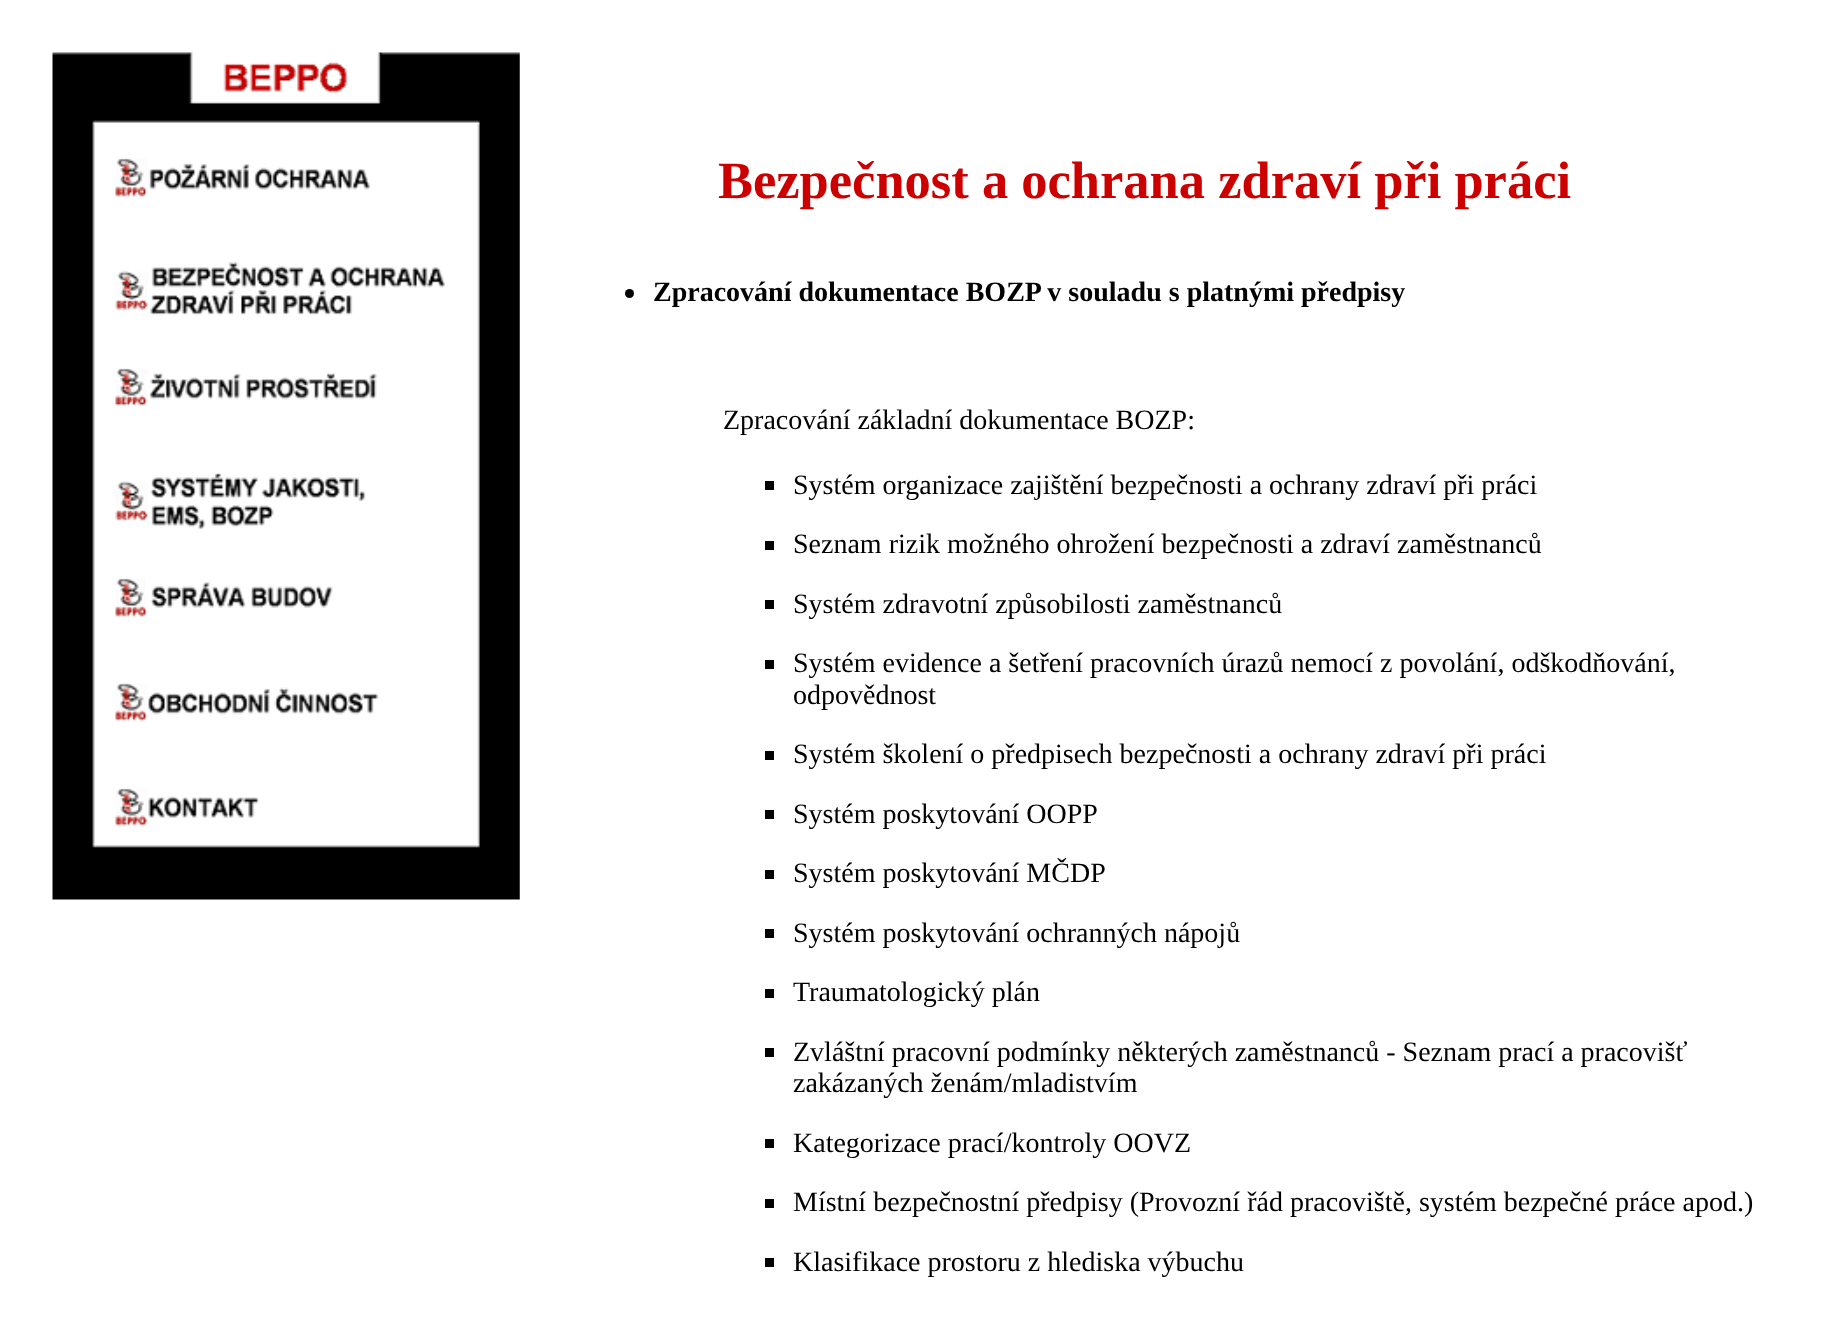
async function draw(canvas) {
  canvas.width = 1840;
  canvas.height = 1335;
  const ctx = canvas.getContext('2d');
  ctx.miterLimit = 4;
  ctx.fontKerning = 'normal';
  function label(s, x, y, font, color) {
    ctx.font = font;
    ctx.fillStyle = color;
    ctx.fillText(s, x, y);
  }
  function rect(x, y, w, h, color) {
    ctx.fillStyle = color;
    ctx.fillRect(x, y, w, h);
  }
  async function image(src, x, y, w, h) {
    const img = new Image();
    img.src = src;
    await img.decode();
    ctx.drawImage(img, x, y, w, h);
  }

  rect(0, 0, 1840, 1335, '#fff');
  await image('assets/img1.png', 52, 52, 468, 848);
  await image('assets/img2.png', 115, 158, 256, 39);
  await image('assets/img3.png', 115, 262, 330, 54);
  await image('assets/img4.png', 115, 368, 262, 38);
  await image('assets/img5.png', 115, 472, 251, 57);
  await image('assets/img6.png', 115, 578, 218, 39);
  await image('assets/img7.png', 115, 683, 264, 39);
  await image('assets/img8.png', 115, 788, 145, 39);
  label('Bezpečnost a ochrana zdraví při práci', 718, 198, 'bold 52.5px Liberation Serif', '#c00');
  ctx.fillStyle = '#000';
  ctx.beginPath();
  ctx.arc(629.5, 293.5, 4.5, 0, 2 * Math.PI);
  ctx.fill();
  label('Zpracování dokumentace BOZP v souladu s platnými předpisy', 653, 301, 'bold 28px Liberation Serif', '#000');
  label('Zpracování základní dokumentace BOZP:', 723, 429, '28px Liberation Serif', '#000');
  rect(765, 481, 9, 9, '#000');
  label('Systém organizace zajištění bezpečnosti a ochrany zdraví při práci', 793, 494, '28px Liberation Serif', '#000');
  rect(765, 541, 9, 9, '#000');
  label('Seznam rizik možného ohrožení bezpečnosti a zdraví zaměstnanců', 793, 553, '28px Liberation Serif', '#000');
  rect(765, 600, 9, 9, '#000');
  label('Systém zdravotní způsobilosti zaměstnanců', 793, 613, '28px Liberation Serif', '#000');
  rect(765, 660, 9, 9, '#000');
  label('Systém evidence a šetření pracovních úrazů nemocí z povolání, odškodňování,', 793, 672, '28px Liberation Serif', '#000');
  label('odpovědnost', 793, 704, '28px Liberation Serif', '#000');
  rect(765, 751, 9, 9, '#000');
  label('Systém školení o předpisech bezpečnosti a ochrany zdraví při práci', 793, 763, '28px Liberation Serif', '#000');
  rect(765, 810, 9, 9, '#000');
  label('Systém poskytování OOPP', 793, 823, '28px Liberation Serif', '#000');
  rect(765, 870, 9, 9, '#000');
  label('Systém poskytování MČDP', 793, 882, '28px Liberation Serif', '#000');
  rect(765, 929, 9, 9, '#000');
  label('Systém poskytování ochranných nápojů', 793, 942, '28px Liberation Serif', '#000');
  rect(765, 989, 9, 9, '#000');
  label('Traumatologický plán', 793, 1001, '28px Liberation Serif', '#000');
  rect(765, 1048, 9, 9, '#000');
  label('Zvláštní pracovní podmínky některých zaměstnanců - Seznam prací a pracovišť', 793, 1061, '28px Liberation Serif', '#000');
  label('zakázaných ženám/mladistvím', 793, 1092, '28px Liberation Serif', '#000');
  rect(765, 1139, 9, 9, '#000');
  label('Kategorizace prací/kontroly OOVZ', 793, 1152, '28px Liberation Serif', '#000');
  rect(765, 1199, 9, 9, '#000');
  label('Místní bezpečnostní předpisy (Provozní řád pracoviště, systém bezpečné práce apod.)', 793, 1211, '28px Liberation Serif', '#000');
  rect(765, 1258, 9, 9, '#000');
  label('Klasifikace prostoru z hlediska výbuchu', 793, 1271, '28px Liberation Serif', '#000');
}

draw(document.querySelector('canvas'));
